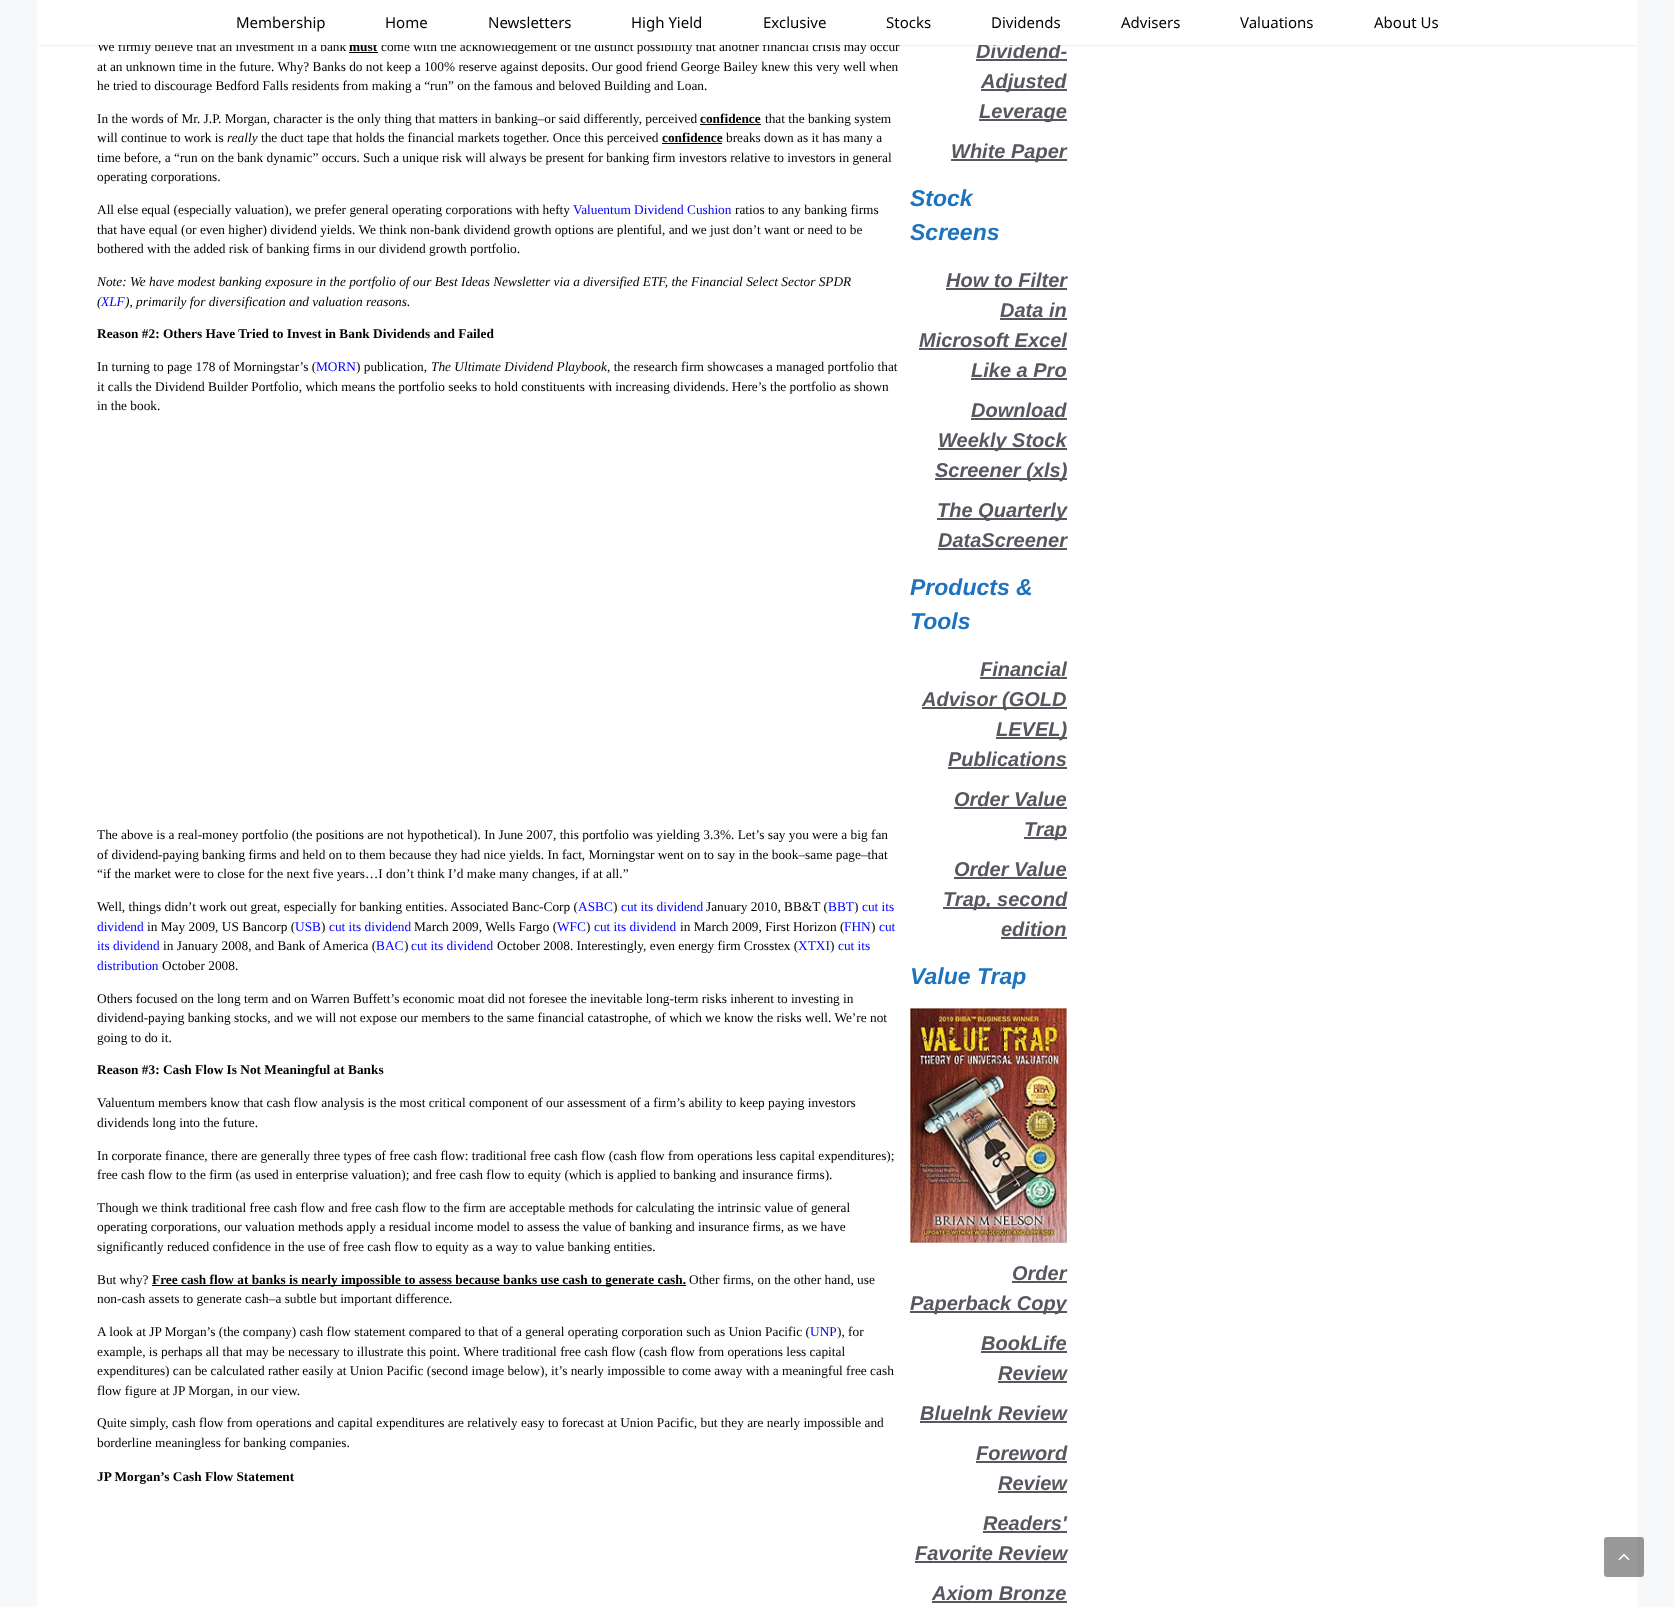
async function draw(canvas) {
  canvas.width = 1674;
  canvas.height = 1607;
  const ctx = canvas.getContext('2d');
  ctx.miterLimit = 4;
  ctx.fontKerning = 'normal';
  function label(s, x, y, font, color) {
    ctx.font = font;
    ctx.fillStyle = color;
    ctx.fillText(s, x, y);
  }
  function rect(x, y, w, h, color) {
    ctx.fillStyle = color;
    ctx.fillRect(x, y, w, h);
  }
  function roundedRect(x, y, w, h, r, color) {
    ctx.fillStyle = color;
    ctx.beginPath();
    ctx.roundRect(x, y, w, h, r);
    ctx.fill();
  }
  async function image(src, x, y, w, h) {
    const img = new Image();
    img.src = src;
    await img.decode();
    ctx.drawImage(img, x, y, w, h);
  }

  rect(0, 0, 1674, 1607, '#f7f8f9');
  rect(37, 45, 1600, 1562, '#fff');
  ctx.fillStyle = '#00000033';
  ctx.filter = 'blur(1px)';
  ctx.beginPath();
  ctx.rect(39, 4, 1596, 41);
  ctx.fill();
  ctx.filter = 'none';
  label('We firmly believe that an investment in a bank', 97, 51, '13.33px Liberation Serif', '#000');
  label('must', 349, 51, 'bold 13.33px Liberation Serif', '#000');
  label('come with the acknowledgement of the distinct possibility that another financial crisis may occur', 381, 51, '13.33px Liberation Serif', '#000');
  label('Dividend-', 976, 58, 'italic bold 20px Liberation Sans', '#575760');
  rect(37, 0, 1600, 45, '#fff');
  label('Membership', 236, 28, '15px Noto Sans', '#000');
  label('Home', 385, 28, '15px Noto Sans', '#000');
  label('Newsletters', 488, 28, '15px Noto Sans', '#000');
  label('High Yield', 631, 28, '15px Noto Sans', '#000');
  label('Exclusive', 763, 28, '15px Noto Sans', '#000');
  label('Stocks', 886, 28, '15px Noto Sans', '#000');
  label('Dividends', 991, 28, '15px Noto Sans', '#000');
  label('Advisers', 1121, 28, '15px Noto Sans', '#000');
  label('Valuations', 1240, 28, '15px Noto Sans', '#000');
  label('About Us', 1374, 28, '15px Noto Sans', '#000');
  rect(349, 52, 29, 1, '#000');
  label('at an unknown time in the future. Why? Banks do not keep a 100% reserve against deposits. Our good friend George Bailey knew this very well when', 97, 71, '13.33px Liberation Serif', '#000');
  label('he tried to discourage Bedford Falls residents from making a “run” on the famous and beloved Building and Loan.', 97, 90, '13.33px Liberation Serif', '#000');
  label('In the words of Mr. J.P. Morgan, character is the only thing that matters in banking–or said differently, perceived', 97, 123, '13.33px Liberation Serif', '#000');
  rect(700, 124, 61, 1, '#000');
  label('confidence', 700, 123, 'bold 13.33px Liberation Serif', '#000');
  label('that the banking system', 765, 123, '13.33px Liberation Serif', '#000');
  label('will continue to work is', 97, 142, '13.33px Liberation Serif', '#000');
  label('really', 227, 142, 'italic 13.33px Liberation Serif', '#000');
  label('the duct tape that holds the financial markets together. Once this perceived', 261, 142, '13.33px Liberation Serif', '#000');
  label('confidence', 662, 142, 'bold 13.33px Liberation Serif', '#000');
  rect(662, 143, 60, 1, '#000');
  label('breaks down as it has many a', 726, 142, '13.33px Liberation Serif', '#000');
  label('time before, a “run on the bank dynamic” occurs. Such a unique risk will always be present for banking firm investors relative to investors in general', 97, 162, '13.33px Liberation Serif', '#000');
  label('operating corporations.', 97, 181, '13.33px Liberation Serif', '#000');
  label('All else equal (especially valuation), we prefer general operating corporations with hefty', 97, 214, '13.33px Liberation Serif', '#000');
  label('Valuentum Dividend Cushion', 573, 214, '13.33px Liberation Serif', '#00f');
  label('ratios to any banking firms', 735, 214, '13.33px Liberation Serif', '#000');
  label('that have equal (or even higher) dividend yields. We think non-bank dividend growth options are plentiful, and we just don’t want or need to be', 97, 234, '13.33px Liberation Serif', '#000');
  label('bothered with the added risk of banking firms in our dividend growth portfolio.', 97, 253, '13.33px Liberation Serif', '#000');
  label('Note: We have modest banking exposure in the portfolio of our Best Ideas Newsletter via a diversified ETF, the Financial Select Sector SPDR', 97, 286, 'italic 13.33px Liberation Serif', '#000');
  label('(', 97, 306, 'italic 13.33px Liberation Serif', '#000');
  label('XLF', 101, 306, 'italic 13.33px Liberation Serif', '#00f');
  label('), primarily for diversification and valuation reasons.', 125, 306, 'italic 13.33px Liberation Serif', '#000');
  label('Reason #2: Others Have Tried to Invest in Bank Dividends and Failed', 97, 338, 'bold 13.33px Liberation Serif', '#000');
  label('In turning to page 178 of Morningstar’s (', 97, 371, '13.33px Liberation Serif', '#000');
  label('MORN', 316, 371, '13.33px Liberation Serif', '#00f');
  label(') publication,', 356, 371, '13.33px Liberation Serif', '#000');
  label('The Ultimate Dividend Playbook', 431, 371, 'italic 13.33px Liberation Serif', '#000');
  label(', the research firm showcases a managed portfolio that', 607, 371, '13.33px Liberation Serif', '#000');
  label('it calls the Dividend Builder Portfolio, which means the portfolio seeks to hold constituents with increasing dividends. Here’s the portfolio as shown', 97, 391, '13.33px Liberation Serif', '#000');
  label('in the book.', 97, 410, '13.33px Liberation Serif', '#000');
  label('The above is a real-money portfolio (the positions are not hypothetical). In June 2007, this portfolio was yielding 3.3%. Let’s say you were a big fan', 97, 839, '13.33px Liberation Serif', '#000');
  label('of dividend-paying banking firms and held on to them because they had nice yields. In fact, Morningstar went on to say in the book–same page–that', 97, 859, '13.33px Liberation Serif', '#000');
  label('“if the market were to close for the next five years…I don’t think I’d make many changes, if at all.”', 97, 878, '13.33px Liberation Serif', '#000');
  label('Well, things didn’t work out great, especially for banking entities. Associated Banc-Corp (', 97, 911, '13.33px Liberation Serif', '#000');
  label('ASBC', 578, 911, '13.33px Liberation Serif', '#00f');
  label(')', 613, 911, '13.33px Liberation Serif', '#000');
  label('cut its dividend', 621, 911, '13.33px Liberation Serif', '#00f');
  label('January 2010, BB&T (', 706, 911, '13.33px Liberation Serif', '#000');
  label('BBT', 828, 911, '13.33px Liberation Serif', '#00f');
  label(')', 854, 911, '13.33px Liberation Serif', '#000');
  label('cut its', 862, 911, '13.33px Liberation Serif', '#00f');
  label('dividend', 97, 931, '13.33px Liberation Serif', '#00f');
  label('in May 2009, US Bancorp (', 147, 931, '13.33px Liberation Serif', '#000');
  label('USB', 295, 931, '13.33px Liberation Serif', '#00f');
  label(')', 321, 931, '13.33px Liberation Serif', '#000');
  label('cut its dividend', 329, 931, '13.33px Liberation Serif', '#00f');
  label('March 2009, Wells Fargo (', 414, 931, '13.33px Liberation Serif', '#000');
  label('WFC', 557, 931, '13.33px Liberation Serif', '#00f');
  label(')', 586, 931, '13.33px Liberation Serif', '#000');
  label('cut its dividend', 594, 931, '13.33px Liberation Serif', '#00f');
  label('in March 2009, First Horizon (', 680, 931, '13.33px Liberation Serif', '#000');
  label('FHN', 844, 931, '13.33px Liberation Serif', '#00f');
  label(')', 871, 931, '13.33px Liberation Serif', '#000');
  label('cut', 879, 931, '13.33px Liberation Serif', '#00f');
  label('its dividend', 97, 950, '13.33px Liberation Serif', '#00f');
  label('in January 2008, and Bank of America (', 163, 950, '13.33px Liberation Serif', '#000');
  label('BAC', 376, 950, '13.33px Liberation Serif', '#00f');
  label(')', 404, 950, '13.33px Liberation Serif', '#000');
  label('cut its dividend', 411, 950, '13.33px Liberation Serif', '#00f');
  label('October 2008. Interestingly, even energy firm Crosstex (', 497, 950, '13.33px Liberation Serif', '#000');
  label('XTXI', 798, 950, '13.33px Liberation Serif', '#00f');
  label(')', 830, 950, '13.33px Liberation Serif', '#000');
  label('cut its', 838, 950, '13.33px Liberation Serif', '#00f');
  label('distribution', 97, 970, '13.33px Liberation Serif', '#00f');
  label('October 2008.', 162, 970, '13.33px Liberation Serif', '#000');
  label('Others focused on the long term and on Warren Buffett’s economic moat did not foresee the inevitable long-term risks inherent to investing in', 97, 1003, '13.33px Liberation Serif', '#000');
  label('dividend-paying banking stocks, and we will not expose our members to the same financial catastrophe, of which we know the risks well. We’re not', 97, 1022, '13.33px Liberation Serif', '#000');
  label('going to do it.', 97, 1042, '13.33px Liberation Serif', '#000');
  label('Reason #3: Cash Flow Is Not Meaningful at Banks', 97, 1074, 'bold 13.33px Liberation Serif', '#000');
  label('Valuentum members know that cash flow analysis is the most critical component of our assessment of a firm’s ability to keep paying investors', 97, 1107, '13.33px Liberation Serif', '#000');
  label('dividends long into the future.', 97, 1127, '13.33px Liberation Serif', '#000');
  label('In corporate finance, there are generally three types of free cash flow: traditional free cash flow (cash flow from operations less capital expenditures);', 97, 1160, '13.33px Liberation Serif', '#000');
  label('free cash flow to the firm (as used in enterprise valuation); and free cash flow to equity (which is applied to banking and insurance firms).', 97, 1179, '13.33px Liberation Serif', '#000');
  label('Though we think traditional free cash flow and free cash flow to the firm are acceptable methods for calculating the intrinsic value of general', 97, 1212, '13.33px Liberation Serif', '#000');
  label('operating corporations, our valuation methods apply a residual income model to assess the value of banking and insurance firms, as we have', 97, 1231, '13.33px Liberation Serif', '#000');
  label('significantly reduced confidence in the use of free cash flow to equity as a way to value banking entities.', 97, 1251, '13.33px Liberation Serif', '#000');
  label('But why?', 97, 1284, '13.33px Liberation Serif', '#000');
  rect(152, 1285, 534, 1, '#000');
  label('Free cash flow at banks is nearly impossible to assess because banks use cash to generate cash.', 152, 1284, 'bold 13.33px Liberation Serif', '#000');
  label('Other firms, on the other hand, use', 689, 1284, '13.33px Liberation Serif', '#000');
  label('non-cash assets to generate cash–a subtle but important difference.', 97, 1303, '13.33px Liberation Serif', '#000');
  label('A look at JP Morgan’s (the company) cash flow statement compared to that of a general operating corporation such as Union Pacific (', 97, 1336, '13.33px Liberation Serif', '#000');
  label('UNP', 810, 1336, '13.33px Liberation Serif', '#00f');
  label('), for', 837, 1336, '13.33px Liberation Serif', '#000');
  label('example, is perhaps all that may be necessary to illustrate this point. Where traditional free cash flow (cash flow from operations less capital', 97, 1356, '13.33px Liberation Serif', '#000');
  label('expenditures) can be calculated rather easily at Union Pacific (second image below), it’s nearly impossible to come away with a meaningful free cash', 97, 1375, '13.33px Liberation Serif', '#000');
  label('flow figure at JP Morgan, in our view.', 97, 1395, '13.33px Liberation Serif', '#000');
  label('Quite simply, cash flow from operations and capital expenditures are relatively easy to forecast at Union Pacific, but they are nearly impossible and', 97, 1427, '13.33px Liberation Serif', '#000');
  label('borderline meaningless for banking companies.', 97, 1447, '13.33px Liberation Serif', '#000');
  label('JP Morgan’s Cash Flow Statement', 97, 1481, 'bold 13.33px Liberation Serif', '#000');
  rect(976, 59, 91, 2, '#575760');
  rect(981, 89, 86, 2, '#575760');
  label('Adjusted', 981, 88, 'italic bold 20px Liberation Sans', '#575760');
  rect(979, 119, 88, 2, '#575760');
  label('Leverage', 979, 118, 'italic bold 20px Liberation Sans', '#575760');
  rect(951, 159, 116, 2, '#575760');
  label('White Paper', 951, 158, 'italic bold 20px Liberation Sans', '#575760');
  label('Stock', 910, 206, 'italic bold 23px Liberation Sans', '#1e73be');
  label('Screens', 910, 240, 'italic bold 23px Liberation Sans', '#1e73be');
  label('How to Filter', 946, 287, 'italic bold 20px Liberation Sans', '#575760');
  rect(946, 288, 121, 2, '#575760');
  label('Data in', 1000, 317, 'italic bold 20px Liberation Sans', '#575760');
  rect(1000, 318, 67, 2, '#575760');
  label('Microsoft Excel', 919, 347, 'italic bold 20px Liberation Sans', '#575760');
  rect(919, 348, 148, 2, '#575760');
  label('Like a Pro', 971, 377, 'italic bold 20px Liberation Sans', '#575760');
  rect(971, 378, 96, 2, '#575760');
  label('Download', 971, 417, 'italic bold 20px Liberation Sans', '#575760');
  rect(971, 418, 96, 2, '#575760');
  rect(938, 448, 129, 2, '#575760');
  label('Weekly Stock', 938, 447, 'italic bold 20px Liberation Sans', '#575760');
  rect(935, 478, 132, 2, '#575760');
  label('Screener (xls)', 935, 477, 'italic bold 20px Liberation Sans', '#575760');
  rect(937, 518, 130, 2, '#575760');
  label('The Quarterly', 937, 517, 'italic bold 20px Liberation Sans', '#575760');
  label('DataScreener', 938, 547, 'italic bold 20px Liberation Sans', '#575760');
  rect(938, 548, 129, 2, '#575760');
  label('Products &', 910, 595, 'italic bold 23px Liberation Sans', '#1e73be');
  label('Tools', 910, 629, 'italic bold 23px Liberation Sans', '#1e73be');
  label('Financial', 980, 676, 'italic bold 20px Liberation Sans', '#575760');
  rect(980, 677, 87, 2, '#575760');
  rect(922, 707, 145, 2, '#575760');
  label('Advisor (GOLD', 922, 706, 'italic bold 20px Liberation Sans', '#575760');
  rect(996, 737, 71, 2, '#575760');
  label('LEVEL)', 996, 736, 'italic bold 20px Liberation Sans', '#575760');
  label('Publications', 948, 766, 'italic bold 20px Liberation Sans', '#575760');
  rect(948, 767, 119, 2, '#575760');
  label('Order Value', 954, 806, 'italic bold 20px Liberation Sans', '#575760');
  rect(954, 807, 113, 2, '#575760');
  rect(1024, 837, 43, 2, '#575760');
  label('Trap', 1024, 836, 'italic bold 20px Liberation Sans', '#575760');
  label('Order Value', 954, 876, 'italic bold 20px Liberation Sans', '#575760');
  rect(954, 877, 113, 2, '#575760');
  rect(943, 907, 124, 2, '#575760');
  label('Trap, second', 943, 906, 'italic bold 20px Liberation Sans', '#575760');
  label('edition', 1001, 936, 'italic bold 20px Liberation Sans', '#575760');
  rect(1001, 937, 66, 2, '#575760');
  label('Value Trap', 910, 984, 'italic bold 23px Liberation Sans', '#1e73be');
  await image('assets/img1.png', 910, 1008, 157, 235);
  label('Order', 1012, 1280, 'italic bold 20px Liberation Sans', '#575760');
  rect(1012, 1281, 55, 2, '#575760');
  rect(910, 1311, 157, 2, '#575760');
  label('Paperback Copy', 910, 1310, 'italic bold 20px Liberation Sans', '#575760');
  label('BookLife', 981, 1350, 'italic bold 20px Liberation Sans', '#575760');
  rect(981, 1351, 86, 2, '#575760');
  label('Review', 998, 1380, 'italic bold 20px Liberation Sans', '#575760');
  rect(998, 1381, 69, 2, '#575760');
  label('BlueInk Review', 920, 1420, 'italic bold 20px Liberation Sans', '#575760');
  rect(920, 1421, 147, 2, '#575760');
  label('Foreword', 976, 1460, 'italic bold 20px Liberation Sans', '#575760');
  rect(976, 1461, 91, 2, '#575760');
  label('Review', 998, 1490, 'italic bold 20px Liberation Sans', '#575760');
  rect(998, 1491, 69, 2, '#575760');
  label('Readers\'', 983, 1530, 'italic bold 20px Liberation Sans', '#575760');
  rect(983, 1531, 84, 2, '#575760');
  label('Favorite Review', 915, 1560, 'italic bold 20px Liberation Sans', '#575760');
  rect(915, 1561, 152, 2, '#575760');
  label('Axiom Bronze', 932, 1600, 'italic bold 20px Liberation Sans', '#575760');
  rect(932, 1601, 135, 2, '#575760');
  roundedRect(1604, 1537, 40, 40, 3, '#00000066');
  await image('assets/img2.png', 1618, 1553, 12, 8);
}

draw(document.querySelector('canvas'));
